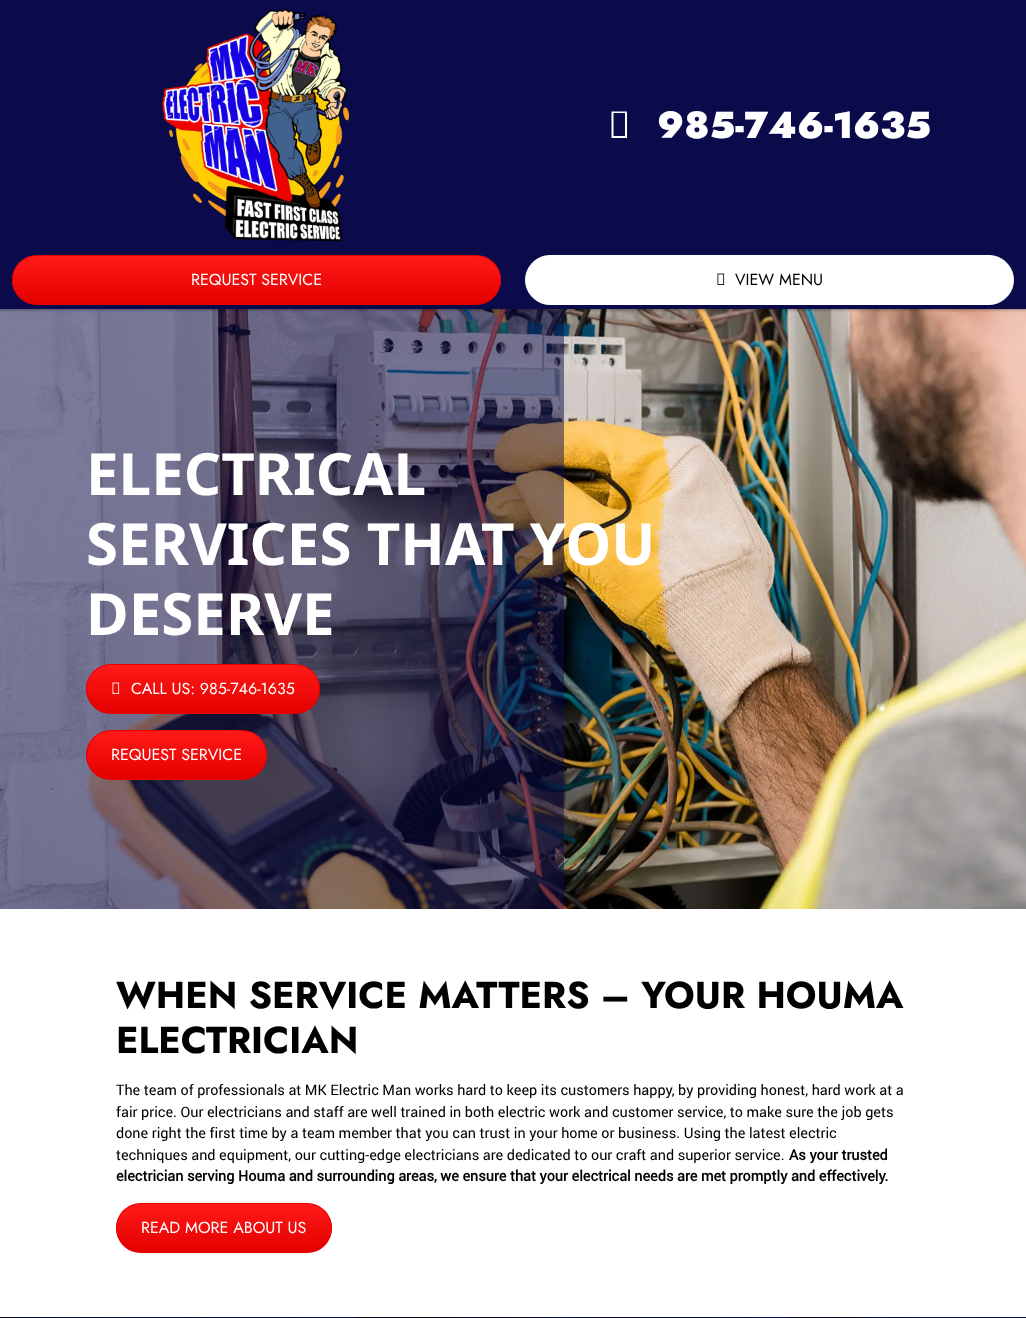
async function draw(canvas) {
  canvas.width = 1026;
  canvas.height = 1318;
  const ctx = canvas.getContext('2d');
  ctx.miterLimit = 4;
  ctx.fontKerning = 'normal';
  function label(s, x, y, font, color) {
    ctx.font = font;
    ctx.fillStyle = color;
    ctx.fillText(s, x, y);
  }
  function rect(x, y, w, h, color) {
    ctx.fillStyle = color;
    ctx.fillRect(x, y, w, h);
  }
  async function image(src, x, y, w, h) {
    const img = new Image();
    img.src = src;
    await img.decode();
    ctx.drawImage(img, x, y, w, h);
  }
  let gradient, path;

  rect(0, 0, 1026, 1318, '#fff');
  await image('assets/img3.png', 0, 309, 1026, 600);
  rect(0, 309, 564, 600, '#0b0b4b80');
  ctx.fillStyle = '#00000054';
  ctx.filter = 'blur(1.5px)';
  ctx.beginPath();
  ctx.rect(-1, -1, 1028, 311);
  ctx.fill();
  ctx.filter = 'none';
  rect(0, 0, 1026, 309, '#0b0b4b');
  await image('assets/img1.png', 162, 8, 188, 234);
  ctx.fillStyle = '#fff';
  path = new Path2D('M611.5 138V111.5H627V138ZM613.5 136H625V113H613.5Z');
  ctx.fill(path);
  label('985-746-1635', 657, 138, '900 37.4px Jost', '#fff');
  ctx.save();
  ctx.beginPath();
  ctx.roundRect(12, 255, 489, 50, 25);
  ctx.clip();
  gradient = ctx.createLinearGradient(257, 304, 257, 256);
  gradient.addColorStop(0, '#e50000');
  gradient.addColorStop(1, '#ff1919');
  ctx.fillStyle = gradient;
  ctx.fillRect(12, 256, 489, 48);
  ctx.restore();
  ctx.beginPath();
  ctx.roundRect(12.5, 255.5, 488, 49, 24.5);
  ctx.strokeStyle = '#e50000';
  ctx.stroke();
  label('REQUEST SERVICE', 191, 285, '16px Jost', '#fff');
  ctx.beginPath();
  ctx.roundRect(525.5, 255.5, 488, 49, 24.5);
  ctx.fill();
  ctx.strokeStyle = '#fff';
  ctx.stroke();
  await image('assets/img2.png', 717, 273, 8, 12);
  label('VIEW MENU', 735, 285, '16px Jost', '#000');
  label('ELECTRICAL', 86, 495, 'bold 58.25px Noto Sans', '#fff');
  label('SERVICES THAT YOU', 86, 565, 'bold 58.25px Noto Sans', '#fff');
  label('DESERVE', 86, 635, 'bold 58.25px Noto Sans', '#fff');
  ctx.save();
  ctx.beginPath();
  ctx.roundRect(86, 664, 234, 50, 25);
  ctx.clip();
  gradient = ctx.createLinearGradient(203, 713, 203, 665);
  gradient.addColorStop(0, '#e50000');
  gradient.addColorStop(1, '#ff1919');
  ctx.fillStyle = gradient;
  ctx.fillRect(86, 665, 234, 48);
  ctx.restore();
  ctx.beginPath();
  ctx.roundRect(86.5, 664.5, 233, 49, 24.5);
  ctx.strokeStyle = '#e50000';
  ctx.stroke();
  await image('assets/img4.png', 112, 682, 8, 12);
  label('CALL US: 985-746-1635', 131, 694, '16px Jost', '#fff');
  ctx.save();
  ctx.beginPath();
  ctx.roundRect(86, 730, 181, 50, 25);
  ctx.clip();
  gradient = ctx.createLinearGradient(177, 779, 177, 731);
  gradient.addColorStop(0, '#e50000');
  gradient.addColorStop(1, '#ff1919');
  ctx.fillStyle = gradient;
  ctx.fillRect(86, 731, 181, 48);
  ctx.restore();
  ctx.beginPath();
  ctx.roundRect(86.5, 730.5, 180, 49, 24.5);
  ctx.stroke();
  label('REQUEST SERVICE', 111, 760, '16px Jost', '#fff');
  label('WHEN SERVICE MATTERS – YOUR HOUMA', 116, 1008, 'bold 37.4px Jost', '#000');
  label('ELECTRICIAN', 116, 1053, 'bold 37.4px Jost', '#000');
  label('The team of professionals at MK Electric Man works hard to keep its customers happy, by providing honest, hard work at a', 116, 1095, '14.4px Roboto', '#000');
  label('fair price. Our electricians and staff are well trained in both electric work and customer service, to make sure the job gets', 116, 1117, '14.4px Roboto', '#000');
  label('done right the first time by a team member that you can trust in your home or business. Using the latest electric', 116, 1138, '14.4px Roboto', '#000');
  label('techniques and equipment, our cutting-edge electricians are dedicated to our craft and superior service.', 116, 1160, '14.4px Roboto', '#000');
  label('As your trusted', 789, 1160, 'bold 14.4px Roboto', '#000');
  label('electrician serving Houma and surrounding areas, we ensure that your electrical needs are met promptly and effectively.', 116, 1181, 'bold 14.4px Roboto', '#000');
  ctx.save();
  ctx.beginPath();
  ctx.roundRect(116, 1203, 216, 50, 25);
  ctx.clip();
  gradient = ctx.createLinearGradient(224, 1252, 224, 1204);
  gradient.addColorStop(0, '#e50000');
  gradient.addColorStop(1, '#ff1919');
  ctx.fillStyle = gradient;
  ctx.fillRect(116, 1204, 216, 48);
  ctx.restore();
  ctx.beginPath();
  ctx.roundRect(116.5, 1203.5, 215, 49, 24.5);
  ctx.stroke();
  label('READ MORE ABOUT US', 141, 1233, '16px Jost', '#fff');
  await image('assets/img5.png', 0, 1317, 1026, 1);
}

draw(document.querySelector('canvas'));
